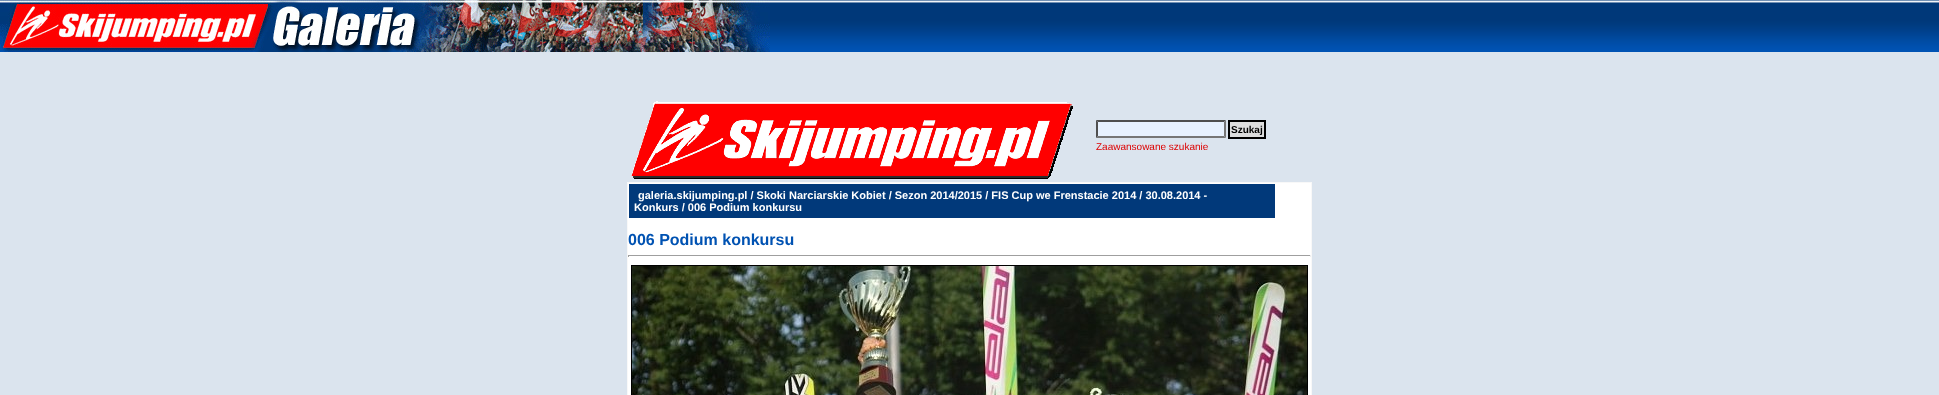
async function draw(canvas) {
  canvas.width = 1939;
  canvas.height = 395;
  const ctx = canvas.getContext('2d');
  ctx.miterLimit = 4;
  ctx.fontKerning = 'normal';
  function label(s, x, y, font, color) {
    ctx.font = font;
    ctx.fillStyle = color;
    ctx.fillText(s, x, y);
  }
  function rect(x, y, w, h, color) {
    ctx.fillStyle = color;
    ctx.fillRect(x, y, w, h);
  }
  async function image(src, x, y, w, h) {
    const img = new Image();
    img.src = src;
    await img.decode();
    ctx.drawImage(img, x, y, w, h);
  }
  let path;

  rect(0, 0, 1939, 395, '#dbe4ee');
  await image('assets/img1.png', 770, 0, 1169, 52);
  await image('assets/img2.png', 0, 0, 770, 52);
  await image('assets/img3.png', 631, 101, 442, 78);
  rect(1096, 120, 130, 18, '#e7f1fe');
  ctx.fillStyle = '#4f4f4f';
  path = new Path2D('M1096 120H1226L1224 122H1098Z');
  ctx.fill(path);
  ctx.fillStyle = '#767676';
  path = new Path2D('M1226 120V138L1224 136V122Z');
  ctx.fill(path);
  path = new Path2D('M1226 138H1096L1098 136H1224Z');
  ctx.fill(path);
  ctx.fillStyle = '#4f4f4f';
  path = new Path2D('M1096 138V120L1098 122V136Z');
  ctx.fill(path);
  ctx.fillStyle = '#ddd';
  ctx.beginPath();
  ctx.rect(1229, 121, 36, 17);
  ctx.fill();
  ctx.strokeStyle = '#000';
  ctx.lineWidth = 2;
  ctx.stroke();
  label('Szukaj', 1231, 133, 'bold 10px Liberation Sans', '#000');
  label('Zaawansowane szukanie', 1096, 150, '10px Liberation Sans', '#d00');
  rect(627, 182, 685, 213, '#f8f8f8');
  rect(628, 183, 683, 212, '#fff');
  rect(629, 184, 646, 34, '#01397a');
  label('galeria.skijumping.pl / Skoki Narciarskie Kobiet / Sezon 2014/2015 / FIS Cup we Frenstacie 2014 / 30.08.2014 -', 638, 199, 'bold 11px Liberation Sans', '#fff');
  label('Konkurs / 006 Podium konkursu', 634, 211, 'bold 11px Liberation Sans', '#fff');
  label('006 Podium konkursu', 628, 245, 'bold 16px Liberation Sans', '#0052b2');
  rect(628, 255, 683, 1, '#9f9f9f');
  rect(1310, 255, 1, 2, '#eee');
  rect(628, 255, 1, 2, '#9f9f9f');
  ctx.lineWidth = 1;
  ctx.strokeRect(631.5, 265.5, 676, 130);
  await image('assets/img4.png', 632, 266, 675, 129);
}

draw(document.querySelector('canvas'));
